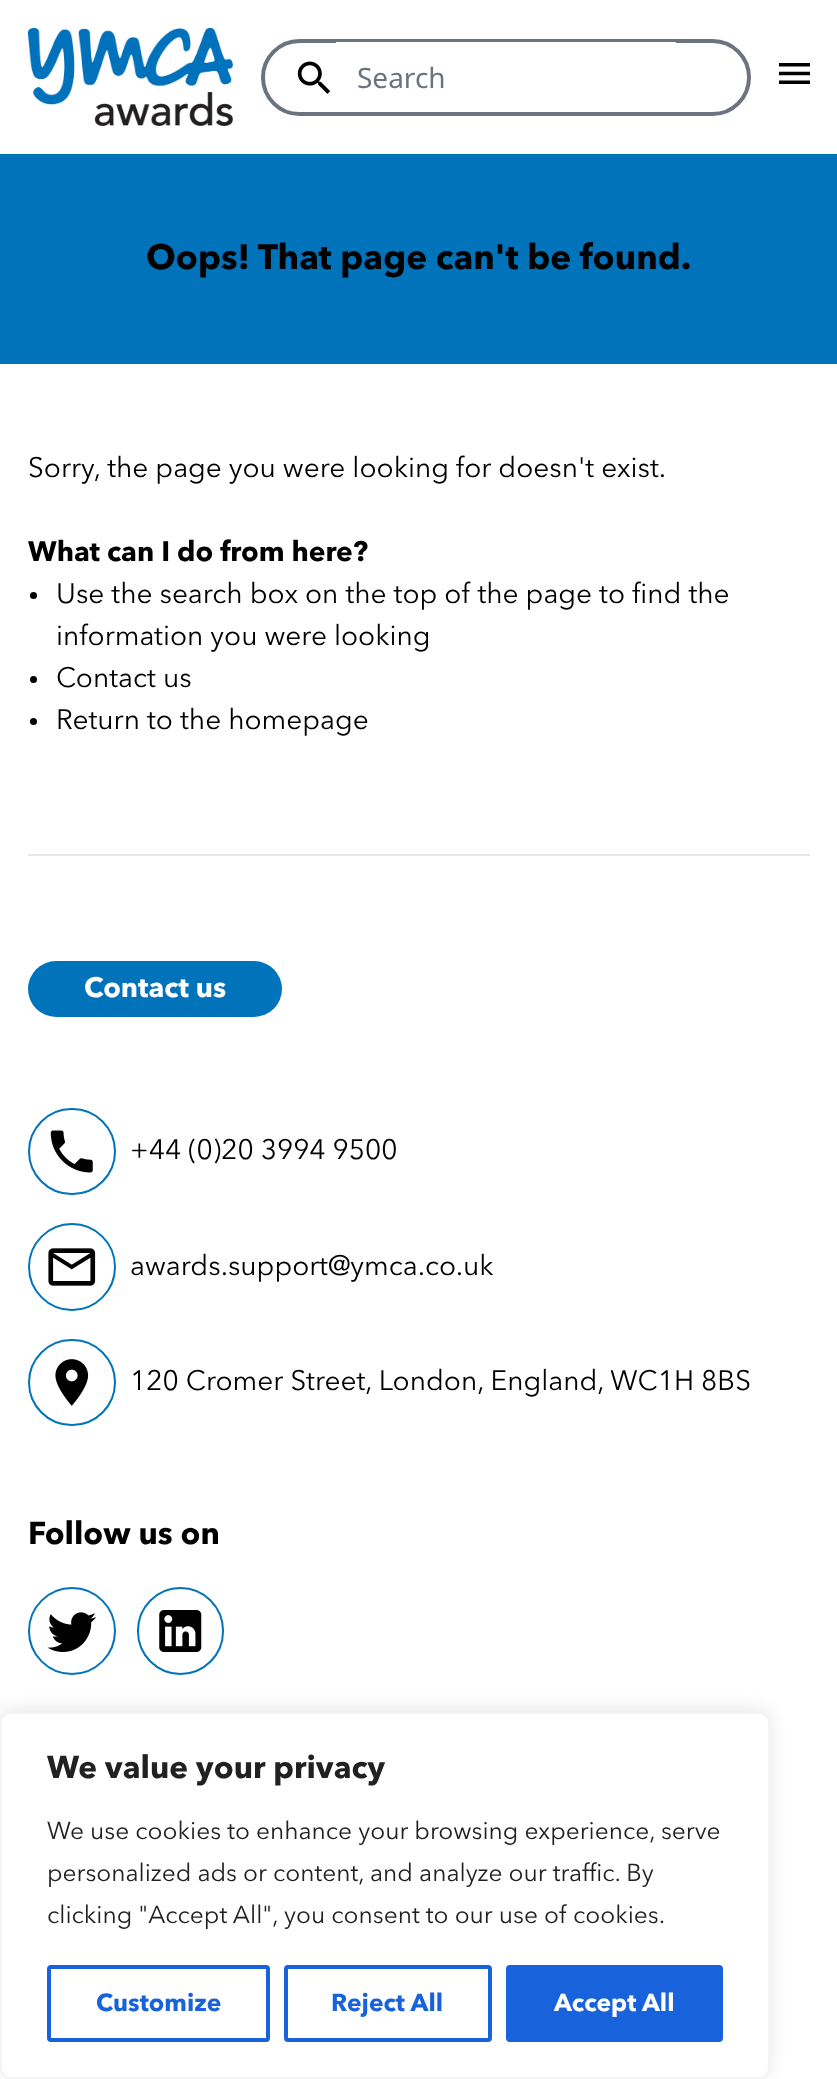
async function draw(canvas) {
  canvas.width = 837;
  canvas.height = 2079;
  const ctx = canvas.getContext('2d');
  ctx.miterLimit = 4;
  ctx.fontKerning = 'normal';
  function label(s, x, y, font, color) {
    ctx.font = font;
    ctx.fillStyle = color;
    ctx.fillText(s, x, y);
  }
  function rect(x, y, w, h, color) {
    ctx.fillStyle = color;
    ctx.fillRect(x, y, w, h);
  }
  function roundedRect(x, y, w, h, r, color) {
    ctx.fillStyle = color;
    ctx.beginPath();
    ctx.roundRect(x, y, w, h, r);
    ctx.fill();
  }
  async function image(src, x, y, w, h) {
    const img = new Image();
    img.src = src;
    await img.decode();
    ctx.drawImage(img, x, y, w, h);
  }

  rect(0, 0, 837, 2079, '#fff');
  await image('assets/img1.png', 28, 28, 205, 98);
  ctx.beginPath();
  ctx.roundRect(263, 41, 486, 73, 36.5);
  ctx.strokeStyle = '#6b7280';
  ctx.lineWidth = 4;
  ctx.stroke();
  await image('assets/img2.png', 297, 61, 34, 33);
  rect(336, 42, 340, 1, '#fff');
  label('Search', 357, 88, '28px Noto Sans', '#6b7280');
  await image('assets/img3.png', 779, 63, 31, 21);
  rect(0, 154, 837, 210, '#0073ba');
  label('Oops! That page can\'t be found.', 146, 269, 'bold 35px Avenir Next', '#000');
  label('Sorry, the page you were looking for doesn\'t exist.', 28, 477, '28px Avenir Next', '#000');
  label('What can I do from here?', 28, 561, 'bold 28px Avenir Next', '#000');
  ctx.beginPath();
  ctx.arc(33.5, 595.5, 3.5, 0, 2 * Math.PI);
  ctx.fill();
  label('Use the search box on the top of the page to find the', 56, 603, '28px Avenir Next', '#000');
  label('information you were looking', 56, 645, '28px Avenir Next', '#000');
  ctx.beginPath();
  ctx.arc(33.5, 679.5, 3.5, 0, 2 * Math.PI);
  ctx.fill();
  label('Contact us', 56, 687, '28px Avenir Next', '#000');
  ctx.beginPath();
  ctx.arc(33.5, 721.5, 3.5, 0, 2 * Math.PI);
  ctx.fill();
  label('Return to the homepage', 56, 729, '28px Avenir Next', '#000');
  rect(28, 854, 782, 2, '#e5e7eb');
  roundedRect(28, 961, 254, 56, 28, '#0073ba');
  label('Contact us', 84, 997, 'bold 28px Avenir Next', '#fff');
  ctx.beginPath();
  ctx.roundRect(29, 1109, 86, 85, 42.5);
  ctx.strokeStyle = '#0073ba';
  ctx.lineWidth = 2;
  ctx.stroke();
  await image('assets/img4.png', 50, 1130, 43, 43);
  label('+44 (0)20 3994 9500', 130, 1159, '28px Avenir Next', '#000');
  ctx.beginPath();
  ctx.arc(72, 1267, 43, 0, 2 * Math.PI);
  ctx.stroke();
  await image('assets/img5.png', 48, 1248, 48, 38);
  label('awards.support@ymca.co.uk', 130, 1275, '28px Avenir Next', '#000');
  ctx.beginPath();
  ctx.roundRect(29, 1340, 86, 85, 42.5);
  ctx.stroke();
  await image('assets/img6.png', 55, 1359, 34, 47);
  label('120 Cromer Street, London, England, WC1H 8BS', 130, 1390, '28px Avenir Next', '#000');
  label('Follow us on', 28, 1544, 'bold 31.5px Avenir Next', '#000');
  ctx.beginPath();
  ctx.arc(72, 1631, 43, 0, 2 * Math.PI);
  ctx.stroke();
  await image('assets/img7.png', 47, 1612, 49, 40);
  ctx.beginPath();
  ctx.roundRect(138, 1588, 85, 86, 42.5);
  ctx.stroke();
  await image('assets/img8.png', 159, 1610, 43, 42);
  ctx.fillStyle = '#acabab4d';
  ctx.filter = 'blur(9px)';
  ctx.beginPath();
  ctx.roundRect(0, 1710, 770, 367, 11);
  ctx.fill();
  ctx.filter = 'none';
  ctx.fillStyle = '#fff';
  ctx.beginPath();
  ctx.roundRect(1, 1713, 768, 365, 10);
  ctx.fill();
  ctx.strokeStyle = '#f4f4f4';
  ctx.stroke();
  label('We value your privacy', 47, 1778, 'bold 31.5px Avenir Next', '#212121');
  label('We use cookies to enhance your browsing experience, serve', 47, 1839, '24.5px Avenir Next', '#212121');
  label('personalized ads or content, and analyze our traffic. By', 47, 1881, '24.5px Avenir Next', '#212121');
  label('clicking "Accept All", you consent to our use of cookies.', 47, 1923, '24.5px Avenir Next', '#212121');
  ctx.beginPath();
  ctx.roundRect(49, 1967, 219, 73, 2);
  ctx.strokeStyle = '#1863dc';
  ctx.lineWidth = 4;
  ctx.stroke();
  label('Customize', 96, 2011, 'bold 24.5px Avenir Next', '#1863dc');
  ctx.beginPath();
  ctx.roundRect(286, 1967, 204, 73, 2);
  ctx.stroke();
  label('Reject All', 331, 2011, 'bold 24.5px Avenir Next', '#1863dc');
  ctx.beginPath();
  ctx.roundRect(508, 1967, 213, 73, 2);
  ctx.fill();
  ctx.stroke();
  label('Accept All', 554, 2011, 'bold 24.5px Avenir Next', '#fff');
}

draw(document.querySelector('canvas'));
